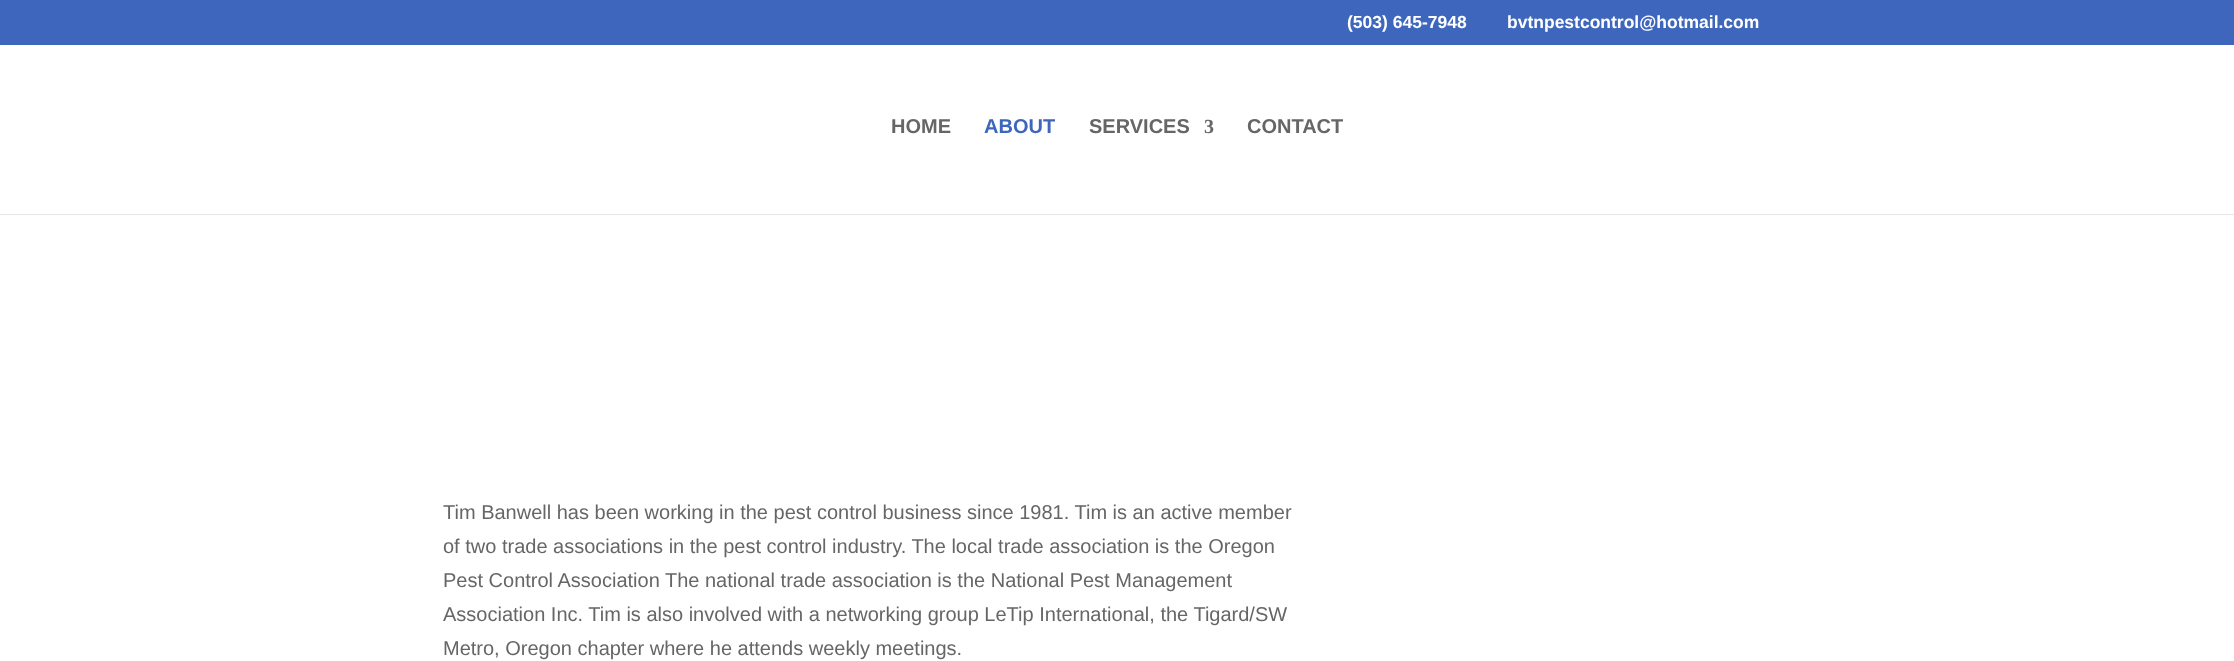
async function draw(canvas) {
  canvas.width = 2234;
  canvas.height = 661;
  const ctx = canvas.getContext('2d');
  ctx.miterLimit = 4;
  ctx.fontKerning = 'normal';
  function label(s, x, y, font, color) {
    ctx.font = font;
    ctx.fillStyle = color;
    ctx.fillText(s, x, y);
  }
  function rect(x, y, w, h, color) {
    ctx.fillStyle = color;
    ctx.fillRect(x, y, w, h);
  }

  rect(0, 0, 2234, 661, '#fff');
  rect(0, 0, 2234, 45, '#3d66bc');
  label('(503) 645-7948', 1347, 28, 'bold 17.5px Liberation Sans', '#fff');
  label('bvtnpestcontrol@hotmail.com', 1507, 28, 'bold 17.5px Liberation Sans', '#fff');
  rect(0, 214, 2234, 1, '#e6e6e6');
  label('HOME', 891, 133, 'bold 20px Liberation Sans', '#666');
  label('ABOUT', 984, 133, 'bold 20px Liberation Sans', '#3d66bc');
  label('SERVICES', 1089, 133, 'bold 20px Liberation Sans', '#666');
  label('3', 1204, 133, 'bold 20px Liberation Serif', '#666');
  label('CONTACT', 1247, 133, 'bold 20px Liberation Sans', '#666');
  label('Tim Banwell has been working in the pest control business since 1981. Tim is an active member', 443, 519, '20px Liberation Sans', '#666');
  label('of two trade associations in the pest control industry. The local trade association is the Oregon', 443, 553, '20px Liberation Sans', '#666');
  label('Pest Control Association The national trade association is the National Pest Management', 443, 587, '20px Liberation Sans', '#666');
  label('Association Inc. Tim is also involved with a networking group LeTip International, the Tigard/SW', 443, 621, '20px Liberation Sans', '#666');
  label('Metro, Oregon chapter where he attends weekly meetings.', 443, 655, '20px Liberation Sans', '#666');
}

draw(document.querySelector('canvas'));
